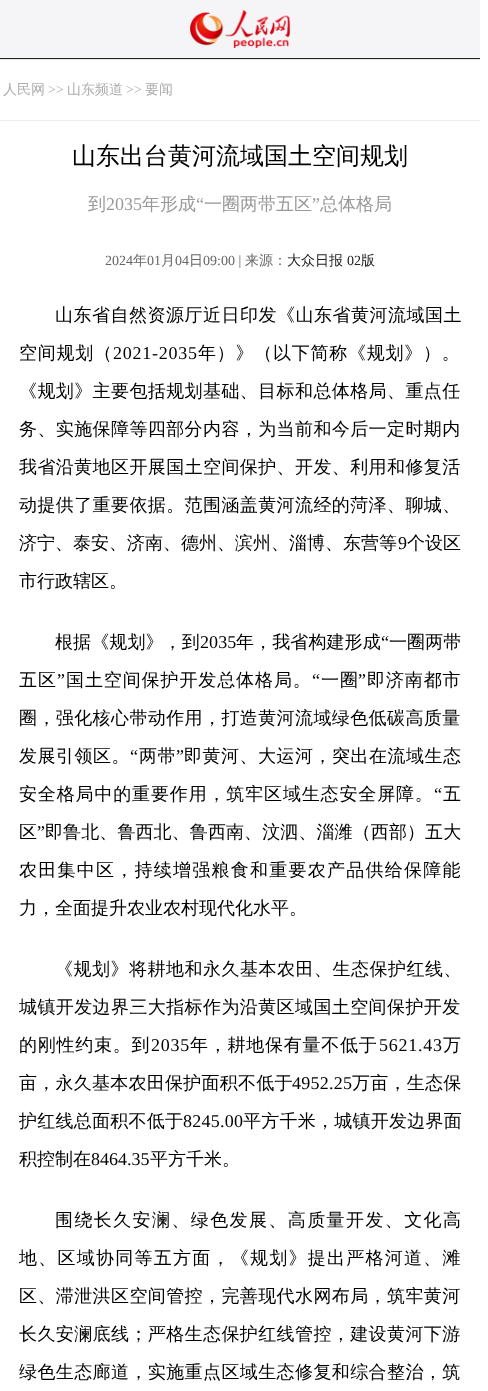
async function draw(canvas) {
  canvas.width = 488;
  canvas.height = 1391;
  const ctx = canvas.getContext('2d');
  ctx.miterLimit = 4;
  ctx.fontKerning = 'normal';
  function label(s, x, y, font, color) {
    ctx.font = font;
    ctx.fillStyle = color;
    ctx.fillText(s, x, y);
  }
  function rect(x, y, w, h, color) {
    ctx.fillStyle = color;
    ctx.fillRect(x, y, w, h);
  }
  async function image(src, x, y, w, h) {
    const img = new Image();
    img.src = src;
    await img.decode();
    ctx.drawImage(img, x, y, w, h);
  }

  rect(0, 0, 488, 1391, '#fff');
  rect(0, 0, 480, 58, '#f5f5f7');
  rect(0, 58, 480, 1, '#212121');
  await image('assets/img1.png', 190, 10, 100, 38);
  rect(0, 59, 480, 1, '#e9e9e9');
  rect(0, 120, 480, 1, '#ececec');
  label('人民网', 3, 94, '500 14px WenQuanYi Zen Hei', '#adadad');
  label('>>', 48, 94, '14px Liberation Serif', '#adadad');
  label('山东频道', 67, 94, '500 14px WenQuanYi Zen Hei', '#adadad');
  label('>>', 126, 94, '14px Liberation Serif', '#adadad');
  label('要闻', 145, 94, '500 14px WenQuanYi Zen Hei', '#adadad');
  label('山东出台黄河流域国土空间规划', 72, 164, '500 24px WenQuanYi Zen Hei', '#000');
  label('到', 88, 210, '500 18px WenQuanYi Zen Hei', '#999');
  label('2035', 106, 210, '18px Liberation Serif', '#999');
  label('年形成', 142, 210, '500 18px WenQuanYi Zen Hei', '#999');
  label('“', 196, 210, '18px Liberation Serif', '#999');
  label('一圈两带五区', 204, 210, '500 18px WenQuanYi Zen Hei', '#999');
  label('”', 312, 210, '18px Liberation Serif', '#999');
  label('总体格局', 320, 210, '500 18px WenQuanYi Zen Hei', '#999');
  label('2024', 105, 265, '14px Liberation Serif', '#666');
  label('年', 133, 265, '500 14px WenQuanYi Zen Hei', '#666');
  label('01', 147, 265, '14px Liberation Serif', '#666');
  label('月', 161, 265, '500 14px WenQuanYi Zen Hei', '#666');
  label('04', 175, 265, '14px Liberation Serif', '#666');
  label('日', 189, 265, '500 14px WenQuanYi Zen Hei', '#666');
  label('09:00 |', 203, 265, '14px Liberation Serif', '#666');
  label('来源：', 245, 265, '500 14px WenQuanYi Zen Hei', '#666');
  label('大众日报', 287, 265, '500 14px WenQuanYi Zen Hei', '#212121');
  label('02', 347, 265, '14px Liberation Serif', '#212121');
  label('版', 361, 265, '500 14px WenQuanYi Zen Hei', '#212121');
  ctx.letterSpacing = '0.5px';
  label('山东省自然资源厅近日印发《山东省黄河流域国土', 55, 321, '500 18px WenQuanYi Zen Hei', '#000');
  ctx.letterSpacing = '0.75px';
  label('空间规划（', 19, 359, '500 18px WenQuanYi Zen Hei', '#000');
  label('2021-2035', 113, 359, '18px Liberation Serif', '#000');
  label('年）》（以下简称《规划》）。', 198, 359, '500 18px WenQuanYi Zen Hei', '#000');
  ctx.letterSpacing = '0.4px';
  label('《规划》主要包括规划基础、目标和总体格局、重点任', 19, 397, '500 18px WenQuanYi Zen Hei', '#000');
  label('务、实施保障等四部分内容，为当前和今后一定时期内', 19, 435, '500 18px WenQuanYi Zen Hei', '#000');
  label('我省沿黄地区开展国土空间保护、开发、利用和修复活', 19, 473, '500 18px WenQuanYi Zen Hei', '#000');
  label('动提供了重要依据。范围涵盖黄河流经的菏泽、聊城、', 19, 511, '500 18px WenQuanYi Zen Hei', '#000');
  ctx.letterSpacing = '0px';
  label('济宁、泰安、济南、德州、滨州、淄博、东营等', 19, 549, '500 18px WenQuanYi Zen Hei', '#000');
  label('9', 398, 549, '18px Liberation Serif', '#000');
  label('个设区', 407, 549, '500 18px WenQuanYi Zen Hei', '#000');
  label('市行政辖区。', 19, 587, '500 18px WenQuanYi Zen Hei', '#000');
  ctx.letterSpacing = '0.1px';
  label('根据《规划》，到', 55, 648, '500 18px WenQuanYi Zen Hei', '#000');
  label('2035', 200, 648, '18px Liberation Serif', '#000');
  label('年，我省构建形成', 236, 648, '500 18px WenQuanYi Zen Hei', '#000');
  label('“', 381, 648, '18px Liberation Serif', '#000');
  label('一圈两带', 389, 648, '500 18px WenQuanYi Zen Hei', '#000');
  ctx.letterSpacing = '0.9px';
  label('五区', 19, 686, '500 18px WenQuanYi Zen Hei', '#000');
  label('”', 57, 686, '18px Liberation Serif', '#000');
  label('国土空间保护开发总体格局。', 66, 686, '500 18px WenQuanYi Zen Hei', '#000');
  label('“', 312, 686, '18px Liberation Serif', '#000');
  label('一圈', 321, 686, '500 18px WenQuanYi Zen Hei', '#000');
  label('”', 358, 686, '18px Liberation Serif', '#000');
  label('即济南都市', 367, 686, '500 18px WenQuanYi Zen Hei', '#000');
  ctx.letterSpacing = '0.4px';
  label('圈，强化核心带动作用，打造黄河流域绿色低碳高质量', 19, 724, '500 18px WenQuanYi Zen Hei', '#000');
  ctx.letterSpacing = '0.5px';
  label('发展引领区。', 19, 762, '500 18px WenQuanYi Zen Hei', '#000');
  label('“', 130, 762, '18px Liberation Serif', '#000');
  label('两带', 139, 762, '500 18px WenQuanYi Zen Hei', '#000');
  label('”', 176, 762, '18px Liberation Serif', '#000');
  label('即黄河、大运河，突出在流域生态', 184, 762, '500 18px WenQuanYi Zen Hei', '#000');
  ctx.letterSpacing = '0.85px';
  label('安全格局中的重要作用，筑牢区域生态安全屏障。', 19, 800, '500 18px WenQuanYi Zen Hei', '#000');
  label('“', 434, 800, '18px Liberation Serif', '#000');
  label('五', 443, 800, '500 18px WenQuanYi Zen Hei', '#000');
  ctx.letterSpacing = '0.1px';
  label('区', 19, 838, '500 18px WenQuanYi Zen Hei', '#000');
  label('”', 37, 838, '18px Liberation Serif', '#000');
  label('即鲁北、鲁西北、鲁西南、汶泗、淄潍（西部）五大', 45, 838, '500 18px WenQuanYi Zen Hei', '#000');
  ctx.letterSpacing = '1.25px';
  label('农田集中区，持续增强粮食和重要农产品供给保障能', 19, 876, '500 18px WenQuanYi Zen Hei', '#000');
  ctx.letterSpacing = '0px';
  label('力，全面提升农业农村现代化水平。', 19, 914, '500 18px WenQuanYi Zen Hei', '#000');
  ctx.letterSpacing = '0.5px';
  label('《规划》将耕地和永久基本农田、生态保护红线、', 55, 975, '500 18px WenQuanYi Zen Hei', '#000');
  ctx.letterSpacing = '0.4px';
  label('城镇开发边界三大指标作为沿黄区域国土空间保护开发', 19, 1013, '500 18px WenQuanYi Zen Hei', '#000');
  ctx.letterSpacing = '0.75px';
  label('的刚性约束。到', 19, 1051, '500 18px WenQuanYi Zen Hei', '#000');
  label('2035', 151, 1051, '18px Liberation Serif', '#000');
  label('年，耕地保有量不低于', 190, 1051, '500 18px WenQuanYi Zen Hei', '#000');
  label('5621.43', 379, 1051, '18px Liberation Serif', '#000');
  label('万', 443, 1051, '500 18px WenQuanYi Zen Hei', '#000');
  ctx.letterSpacing = '0.25px';
  label('亩，永久基本农田保护面积不低于', 19, 1089, '500 18px WenQuanYi Zen Hei', '#000');
  label('4952.25', 292, 1089, '18px Liberation Serif', '#000');
  label('万亩，生态保', 352, 1089, '500 18px WenQuanYi Zen Hei', '#000');
  label('护红线总面积不低于', 19, 1127, '500 18px WenQuanYi Zen Hei', '#000');
  label('8245.00', 183, 1127, '18px Liberation Serif', '#000');
  label('平方千米，城镇开发边界面', 243, 1127, '500 18px WenQuanYi Zen Hei', '#000');
  ctx.letterSpacing = '0px';
  label('积控制在', 19, 1165, '500 18px WenQuanYi Zen Hei', '#000');
  label('8464.35', 91, 1165, '18px Liberation Serif', '#000');
  label('平方千米。', 150, 1165, '500 18px WenQuanYi Zen Hei', '#000');
  ctx.letterSpacing = '1.4px';
  label('围绕长久安澜、绿色发展、高质量开发、文化高', 55, 1226, '500 18px WenQuanYi Zen Hei', '#000');
  ctx.letterSpacing = '1.25px';
  label('地、区域协同等五方面，《规划》提出严格河道、滩', 19, 1264, '500 18px WenQuanYi Zen Hei', '#000');
  ctx.letterSpacing = '0.4px';
  label('区、滞泄洪区空间管控，完善现代水网布局，筑牢黄河', 19, 1302, '500 18px WenQuanYi Zen Hei', '#000');
  label('长久安澜底线；严格生态保护红线管控，建设黄河下游', 19, 1340, '500 18px WenQuanYi Zen Hei', '#000');
  label('绿色生态廊道，实施重点区域生态修复和综合整治，筑', 19, 1378, '500 18px WenQuanYi Zen Hei', '#000');
}

draw(document.querySelector('canvas'));
